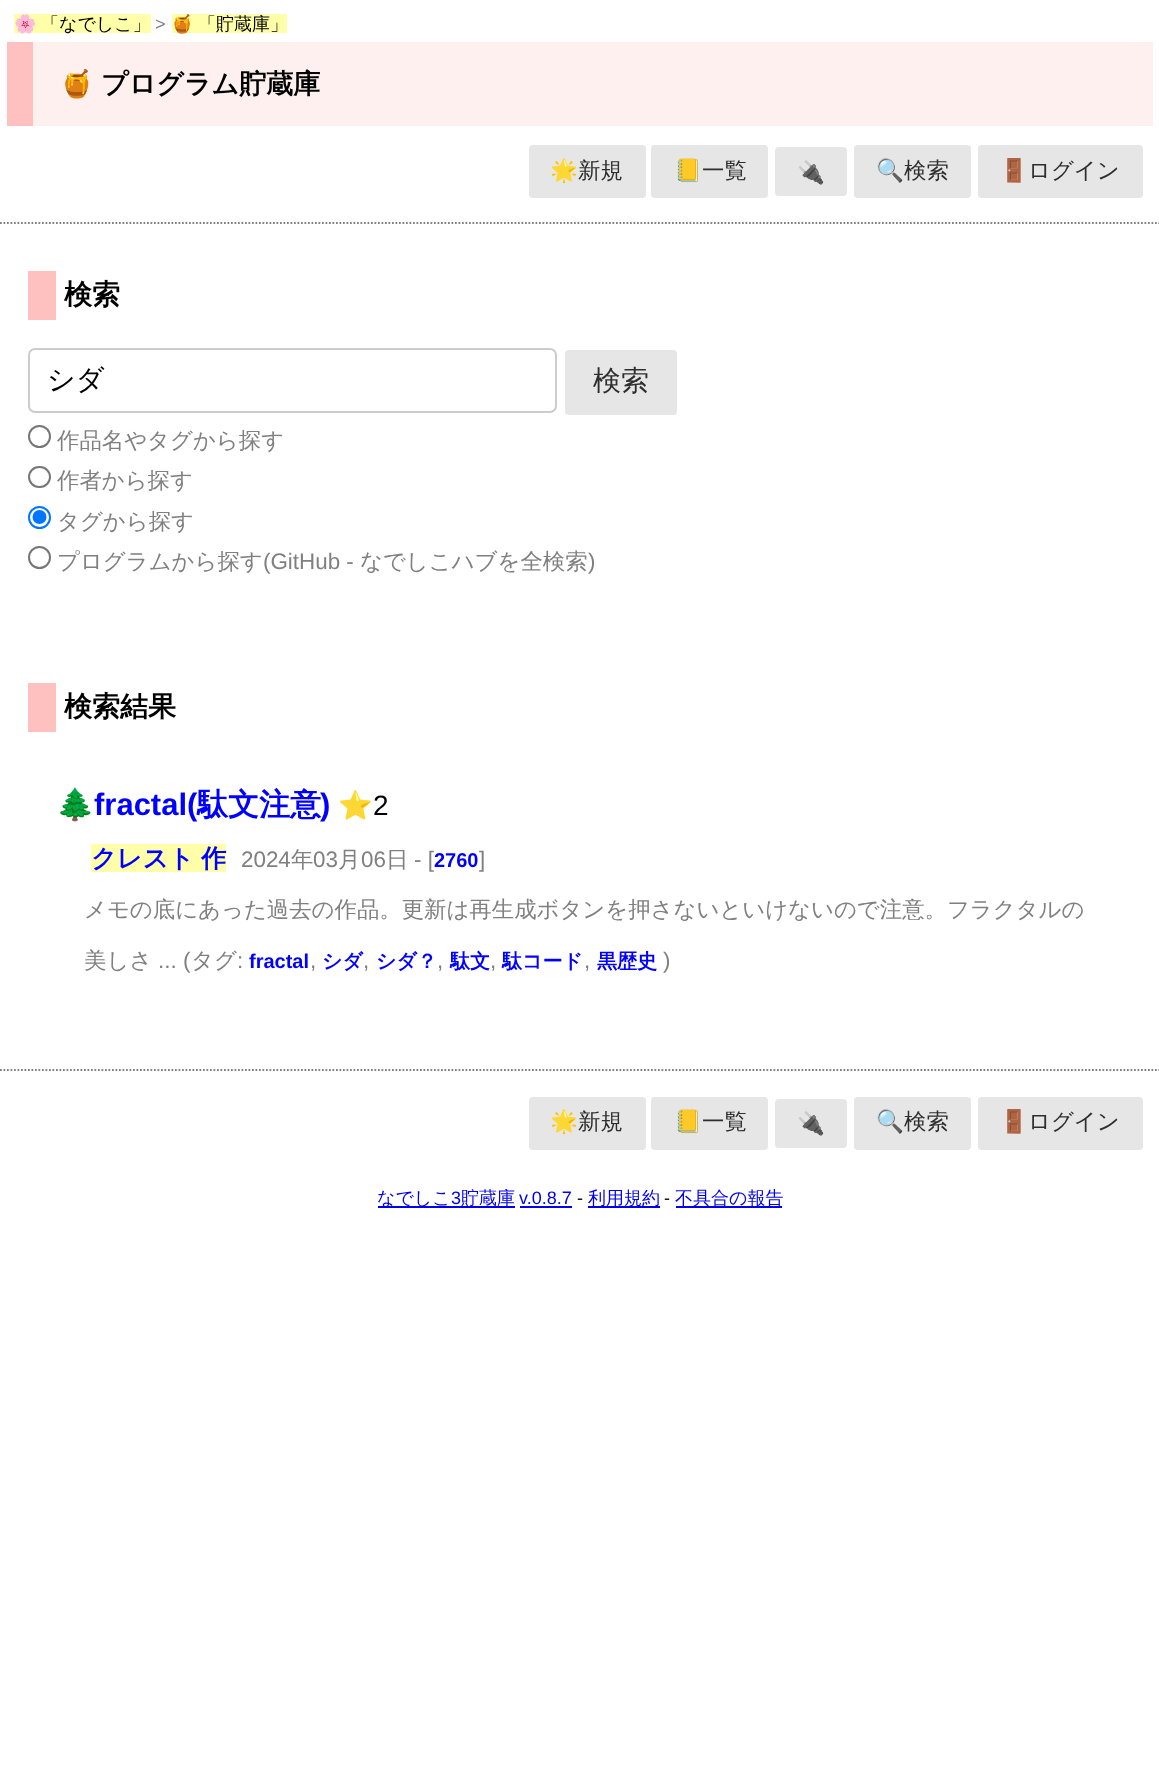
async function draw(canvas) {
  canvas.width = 1159;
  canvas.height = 1770;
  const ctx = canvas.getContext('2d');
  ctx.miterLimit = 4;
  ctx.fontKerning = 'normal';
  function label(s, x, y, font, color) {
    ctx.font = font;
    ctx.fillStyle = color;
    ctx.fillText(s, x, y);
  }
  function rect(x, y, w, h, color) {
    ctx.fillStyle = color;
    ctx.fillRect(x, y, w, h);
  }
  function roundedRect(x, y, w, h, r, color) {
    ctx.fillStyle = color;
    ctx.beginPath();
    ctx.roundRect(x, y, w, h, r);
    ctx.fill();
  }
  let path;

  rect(0, 0, 1159, 1770, '#fff');
  path = new Path2D('M0 223H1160');
  ctx.strokeStyle = '#808080';
  ctx.lineWidth = 1.8;
  ctx.setLineDash([1.75, 1.75]);
  ctx.stroke(path);
  rect(14, 14, 137, 19, '#ffa');
  label('🌸', 14, 30, '18px Noto Color Emoji', '#000');
  label('「なでしこ」', 41, 30, '500 18px WenQuanYi Zen Hei', '#000');
  label('>', 155, 30, '18px Liberation Sans', '#808080');
  rect(172, 14, 115, 19, '#ffa');
  label('🍯', 171, 30, '18px Noto Color Emoji', '#000');
  label('「貯蔵庫」', 198, 30, '500 18px WenQuanYi Zen Hei', '#000');
  rect(33, 42, 1120, 84, '#fff0f0');
  rect(7, 42, 26, 84, '#ffc0c0');
  label('🍯', 60, 93, 'bold 27px Noto Color Emoji', '#000');
  label('プログラム貯蔵庫', 101, 93, 'bold 27px WenQuanYi Zen Hei', '#000');
  roundedRect(529, 145, 117, 53, 4, '#e6e6e6');
  label('🌟', 550, 178, '22.4px Noto Color Emoji', '#2e2e2e');
  label('新規', 578, 178, '500 22.4px WenQuanYi Zen Hei', '#2e2e2e');
  roundedRect(651, 145, 117, 53, 4, '#e6e6e6');
  label('📒', 674, 178, '22.4px Noto Color Emoji', '#2e2e2e');
  label('一覧', 702, 178, '500 22.4px WenQuanYi Zen Hei', '#2e2e2e');
  roundedRect(775, 147, 72, 49, 4, '#e6e6e6');
  label('🔌', 797, 180, '22.4px Noto Color Emoji', '#2e2e2e');
  roundedRect(854, 145, 117, 53, 4, '#e6e6e6');
  label('🔍', 876, 178, '22.4px Noto Color Emoji', '#2e2e2e');
  label('検索', 904, 178, '500 22.4px WenQuanYi Zen Hei', '#2e2e2e');
  roundedRect(978, 145, 165, 53, 4, '#e6e6e6');
  label('🚪', 1000, 178, '22.4px Noto Color Emoji', '#2e2e2e');
  label('ログイン', 1028, 178, '500 22.4px WenQuanYi Zen Hei', '#2e2e2e');
  rect(28, 271, 28, 49, '#ffc0c0');
  label('検索', 64, 304, 'bold 28px WenQuanYi Zen Hei', '#000');
  ctx.beginPath();
  ctx.roundRect(29, 349, 527, 63, 6);
  ctx.strokeStyle = '#ccc';
  ctx.lineWidth = 2;
  ctx.setLineDash([]);
  ctx.stroke();
  label('シダ', 47, 389, '500 28px WenQuanYi Zen Hei', '#000');
  roundedRect(565, 350, 112, 65, 4, '#e6e6e6');
  label('検索', 593, 390, '500 28px WenQuanYi Zen Hei', '#2e2e2e');
  ctx.beginPath();
  ctx.arc(39.5, 436.5, 10.5, 0, 2 * Math.PI);
  ctx.strokeStyle = '#767676';
  ctx.stroke();
  label('作品名やタグから探す', 57, 448, '500 22.4px WenQuanYi Zen Hei', '#808080');
  ctx.beginPath();
  ctx.roundRect(29, 467, 21, 20, 10);
  ctx.stroke();
  label('作者から探す', 57, 488, '500 22.4px WenQuanYi Zen Hei', '#808080');
  ctx.beginPath();
  ctx.arc(39.5, 517.5, 10.5, 0, 2 * Math.PI);
  ctx.strokeStyle = '#0075ff';
  ctx.stroke();
  ctx.fillStyle = '#0075ff';
  ctx.beginPath();
  ctx.arc(39.5, 517, 7, 0, 2 * Math.PI);
  ctx.fill();
  label('タグから探す', 57, 529, '500 22.4px WenQuanYi Zen Hei', '#808080');
  ctx.beginPath();
  ctx.arc(39.5, 557.5, 10.5, 0, 2 * Math.PI);
  ctx.strokeStyle = '#767676';
  ctx.stroke();
  label('プログラムから探す', 57, 569, '500 22.4px WenQuanYi Zen Hei', '#808080');
  label('(GitHub -', 263, 569, '22.4px Liberation Sans', '#808080');
  label('なでしこハブを全検索', 360, 569, '500 22.4px WenQuanYi Zen Hei', '#808080');
  label(')', 588, 569, '22.4px Liberation Sans', '#808080');
  rect(28, 683, 28, 49, '#ffc0c0');
  label('検索結果', 64, 716, 'bold 28px WenQuanYi Zen Hei', '#000');
  label('🌲', 56, 815, 'bold 31px Noto Color Emoji', '#00f');
  label('fractal(', 94, 815, 'bold 31px Liberation Sans', '#00f');
  label('駄文注意', 197, 815, 'bold 31px WenQuanYi Zen Hei', '#00f');
  label(')', 320, 815, 'bold 31px Liberation Sans', '#00f');
  label('⭐', 338, 815, '28px Noto Color Emoji', '#000');
  label('2', 373, 815, '28px Liberation Sans', '#000');
  rect(91, 844, 135, 28, '#ffa');
  ctx.wordSpacing = '-1px';
  label('クレスト 作', 91, 867, 'bold 25.25px WenQuanYi Zen Hei', '#00f');
  ctx.wordSpacing = '0px';
  label('2024', 241, 867, '22.4px Liberation Sans', '#808080');
  label('年', 291, 867, '500 22.4px WenQuanYi Zen Hei', '#808080');
  label('03', 313, 867, '22.4px Liberation Sans', '#808080');
  label('月', 338, 867, '500 22.4px WenQuanYi Zen Hei', '#808080');
  label('06', 361, 867, '22.4px Liberation Sans', '#808080');
  label('日', 386, 867, '500 22.4px WenQuanYi Zen Hei', '#808080');
  label('- [', 414, 867, '22.4px Liberation Sans', '#808080');
  label('2760', 434, 867, 'bold 20px Liberation Sans', '#00f');
  label(']', 479, 867, '22.4px Liberation Sans', '#808080');
  label('メモの底にあった過去の作品。更新は再生成ボタンを押さないといけないので注意。フラクタルの', 84, 917, '500 22.4px WenQuanYi Zen Hei', '#808080');
  label('美しさ', 84, 968, '500 22.4px WenQuanYi Zen Hei', '#808080');
  label('... (', 158, 968, '22.4px Liberation Sans', '#808080');
  label('タグ', 191, 968, '500 22.4px WenQuanYi Zen Hei', '#808080');
  label(':', 237, 968, '22.4px Liberation Sans', '#808080');
  label('fractal', 249, 968, 'bold 20px Liberation Sans', '#00f');
  label(',', 310, 968, '22.4px Liberation Sans', '#808080');
  label('シダ', 322, 968, 'bold 20px WenQuanYi Zen Hei', '#00f');
  label(',', 363, 968, '22.4px Liberation Sans', '#808080');
  label('シダ？', 376, 968, 'bold 20px WenQuanYi Zen Hei', '#00f');
  label(',', 437, 968, '22.4px Liberation Sans', '#808080');
  label('駄文', 450, 968, 'bold 20px WenQuanYi Zen Hei', '#00f');
  label(',', 490, 968, '22.4px Liberation Sans', '#808080');
  label('駄コード', 502, 968, 'bold 20px WenQuanYi Zen Hei', '#00f');
  label(',', 584, 968, '22.4px Liberation Sans', '#808080');
  label('黒歴史', 597, 968, 'bold 20px WenQuanYi Zen Hei', '#00f');
  label(')', 663, 968, '22.4px Liberation Sans', '#808080');
  path = new Path2D('M0 1070H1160');
  ctx.strokeStyle = '#808080';
  ctx.lineWidth = 1.8;
  ctx.setLineDash([1.75, 1.75]);
  ctx.stroke(path);
  roundedRect(529, 1097, 117, 53, 4, '#e6e6e6');
  label('🌟', 550, 1129, '22.4px Noto Color Emoji', '#2e2e2e');
  label('新規', 578, 1129, '500 22.4px WenQuanYi Zen Hei', '#2e2e2e');
  roundedRect(651, 1097, 117, 53, 4, '#e6e6e6');
  label('📒', 674, 1129, '22.4px Noto Color Emoji', '#2e2e2e');
  label('一覧', 702, 1129, '500 22.4px WenQuanYi Zen Hei', '#2e2e2e');
  roundedRect(775, 1099, 72, 49, 4, '#e6e6e6');
  label('🔌', 797, 1131, '22.4px Noto Color Emoji', '#2e2e2e');
  roundedRect(854, 1097, 117, 53, 4, '#e6e6e6');
  label('🔍', 876, 1129, '22.4px Noto Color Emoji', '#2e2e2e');
  label('検索', 904, 1129, '500 22.4px WenQuanYi Zen Hei', '#2e2e2e');
  roundedRect(978, 1097, 165, 53, 4, '#e6e6e6');
  label('🚪', 1000, 1129, '22.4px Noto Color Emoji', '#2e2e2e');
  label('ログイン', 1028, 1129, '500 22.4px WenQuanYi Zen Hei', '#2e2e2e');
  rect(378, 1206, 137, 2, '#00e');
  label('なでしこ', 377, 1204, '500 18px WenQuanYi Zen Hei', '#00e');
  label('3', 451, 1204, '18px Liberation Sans', '#00e');
  label('貯蔵庫', 461, 1204, '500 18px WenQuanYi Zen Hei', '#00e');
  label('v.0.8.7', 519, 1204, '18px Liberation Sans', '#00e');
  rect(520, 1206, 52, 2, '#00e');
  label('-', 577, 1204, '18px Liberation Sans', '#000');
  rect(588, 1206, 72, 2, '#00e');
  label('利用規約', 588, 1204, '500 18px WenQuanYi Zen Hei', '#00e');
  label('-', 664, 1204, '18px Liberation Sans', '#000');
  rect(676, 1206, 106, 2, '#00e');
  label('不具合の報告', 675, 1204, '500 18px WenQuanYi Zen Hei', '#00e');
}

draw(document.querySelector('canvas'));
